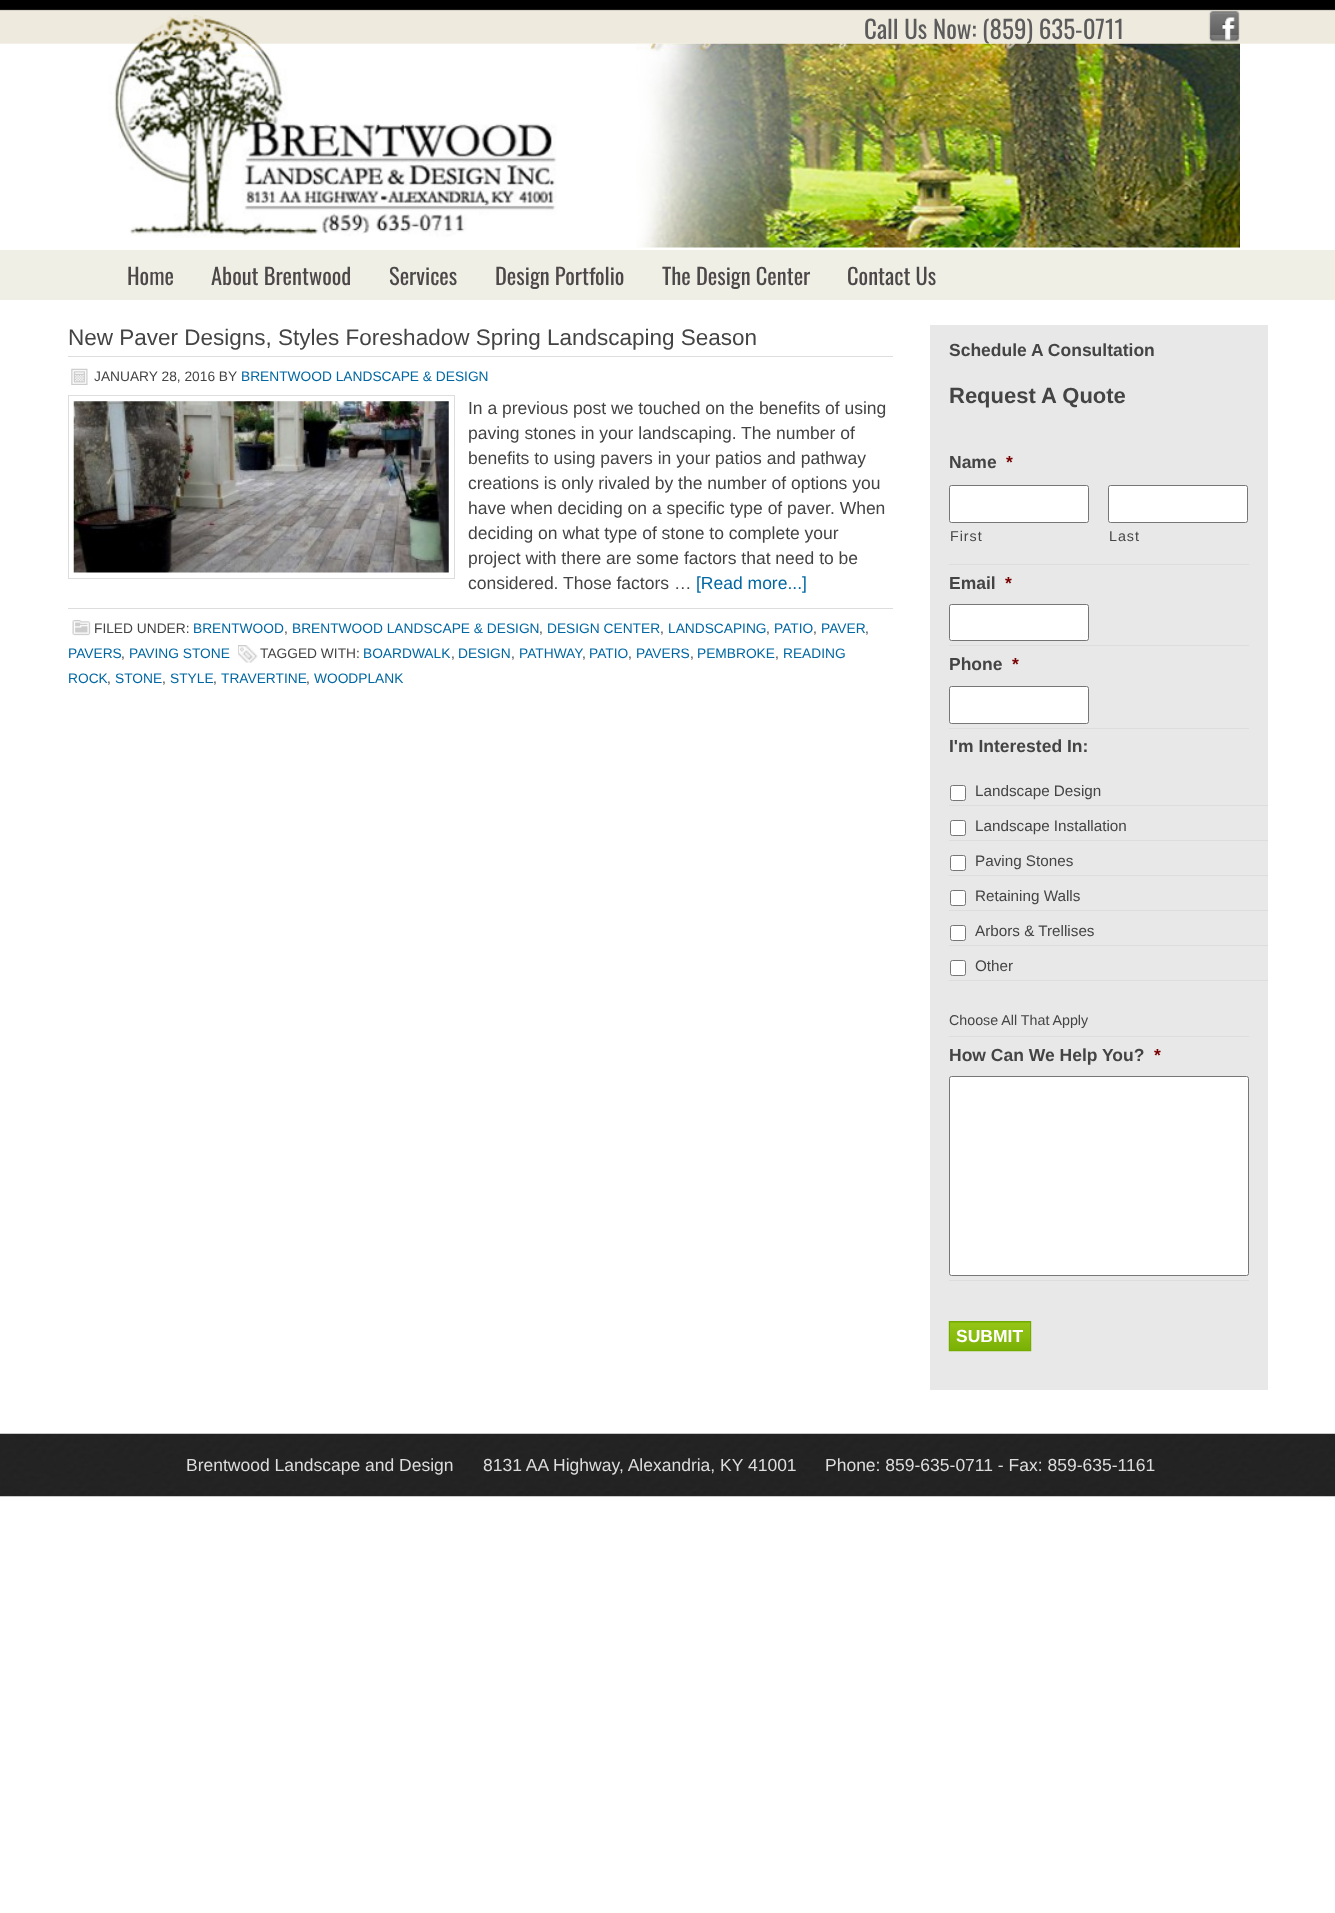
async function draw(canvas) {
  canvas.width = 1335;
  canvas.height = 1913;
  const ctx = canvas.getContext('2d');
  ctx.miterLimit = 4;
  ctx.fontKerning = 'normal';
  function label(s, x, y, font, color) {
    ctx.font = font;
    ctx.fillStyle = color;
    ctx.fillText(s, x, y);
  }
  function rect(x, y, w, h, color) {
    ctx.fillStyle = color;
    ctx.fillRect(x, y, w, h);
  }
  async function image(src, x, y, w, h) {
    const img = new Image();
    img.src = src;
    await img.decode();
    ctx.drawImage(img, x, y, w, h);
  }

  rect(0, 0, 1335, 1913, '#fff');
  await image('assets/img1.png', 0, 0, 1335, 44);
  await image('assets/img2.png', 108, 15, 449, 223);
  label('Call Us Now: (859) 635-0711', 864, 39, '25px Oswald', '#5c5c5c');
  await image('assets/img3.png', 1208, 11, 32, 32);
  await image('assets/img4.png', 636, 43, 604, 205);
  rect(0, 250, 1335, 50, '#f0efe5');
  label('Home', 127, 285, '22.5px Oswald', '#4c4849');
  label('About Brentwood', 211, 285, '22.5px Oswald', '#4c4849');
  label('Services', 389, 285, '22.5px Oswald', '#4c4849');
  label('Design Portfolio', 495, 285, '22.5px Oswald', '#4c4849');
  label('The Design Center', 662, 285, '22.5px Oswald', '#4c4849');
  label('Contact Us', 847, 285, '22.5px Oswald', '#4c4849');
  rect(68, 356, 825, 1, '#ddd');
  label('New Paver Designs, Styles Foreshadow Spring Landscaping Season', 68, 345, '22.5px Liberation Sans', '#444');
  await image('assets/img5.png', 71, 368, 17, 17);
  label('JANUARY 28, 2016 BY', 94, 381, '13.75px Liberation Sans', '#444');
  label('BRENTWOOD LANDSCAPE & DESIGN', 241, 381, '13.75px Liberation Sans', '#0067a2');
  ctx.strokeStyle = '#ddd';
  ctx.strokeRect(68.5, 395.5, 386, 183);
  await image('assets/img6.png', 73, 401, 376, 172);
  label('In a previous post we touched on the benefits of using', 468, 414, '17.5px Liberation Sans', '#444');
  label('paving stones in your landscaping. The number of', 468, 439, '17.5px Liberation Sans', '#444');
  label('benefits to using pavers in your patios and pathway', 468, 464, '17.5px Liberation Sans', '#444');
  label('creations is only rivaled by the number of options you', 468, 489, '17.5px Liberation Sans', '#444');
  label('have when deciding on a specific type of paver. When', 468, 514, '17.5px Liberation Sans', '#444');
  label('deciding on what type of stone to complete your', 468, 539, '17.5px Liberation Sans', '#444');
  label('project with there are some factors that need to be', 468, 564, '17.5px Liberation Sans', '#444');
  label('considered.', 468, 589, '17.5px Liberation Sans', '#444');
  label('Those factors …', 563, 589, '17.5px Liberation Sans', '#444');
  label('[Read more...]', 696, 589, '17.5px Liberation Sans', '#0067a2');
  rect(68, 608, 825, 1, '#ddd');
  await image('assets/img7.png', 72, 620, 19, 16);
  label('FILED UNDER:', 94, 633, '13.75px Liberation Sans', '#444');
  label('BRENTWOOD', 193, 633, '13.75px Liberation Sans', '#0067a2');
  label(',', 284, 633, '13.75px Liberation Sans', '#444');
  label('BRENTWOOD LANDSCAPE & DESIGN', 292, 633, '13.75px Liberation Sans', '#0067a2');
  label(',', 539, 633, '13.75px Liberation Sans', '#444');
  label('DESIGN CENTER', 547, 633, '13.75px Liberation Sans', '#0067a2');
  label(',', 660, 633, '13.75px Liberation Sans', '#444');
  label('LANDSCAPING', 668, 633, '13.75px Liberation Sans', '#0067a2');
  label(',', 766, 633, '13.75px Liberation Sans', '#444');
  label('PATIO', 774, 633, '13.75px Liberation Sans', '#0067a2');
  label(',', 813, 633, '13.75px Liberation Sans', '#444');
  label('PAVER', 821, 633, '13.75px Liberation Sans', '#0067a2');
  label(',', 865, 633, '13.75px Liberation Sans', '#444');
  label('PAVERS', 68, 658, '13.75px Liberation Sans', '#0067a2');
  label(',', 121, 658, '13.75px Liberation Sans', '#444');
  label('PAVING STONE', 129, 658, '13.75px Liberation Sans', '#0067a2');
  await image('assets/img8.png', 238, 645, 20, 18);
  label('TAGGED WITH:', 260, 658, '13.75px Liberation Sans', '#444');
  label('BOARDWALK', 363, 658, '13.75px Liberation Sans', '#0067a2');
  label(',', 451, 658, '13.75px Liberation Sans', '#444');
  label('DESIGN', 458, 658, '13.75px Liberation Sans', '#0067a2');
  label(',', 511, 658, '13.75px Liberation Sans', '#444');
  label('PATHWAY', 519, 658, '13.75px Liberation Sans', '#0067a2');
  label(',', 582, 658, '13.75px Liberation Sans', '#444');
  label('PATIO', 589, 658, '13.75px Liberation Sans', '#0067a2');
  label(',', 628, 658, '13.75px Liberation Sans', '#444');
  label('PAVERS', 636, 658, '13.75px Liberation Sans', '#0067a2');
  label(',', 690, 658, '13.75px Liberation Sans', '#444');
  label('PEMBROKE', 697, 658, '13.75px Liberation Sans', '#0067a2');
  label(',', 775, 658, '13.75px Liberation Sans', '#444');
  label('READING', 783, 658, '13.75px Liberation Sans', '#0067a2');
  label('ROCK', 68, 683, '13.75px Liberation Sans', '#0067a2');
  label(',', 107, 683, '13.75px Liberation Sans', '#444');
  label('STONE', 115, 683, '13.75px Liberation Sans', '#0067a2');
  label(',', 162, 683, '13.75px Liberation Sans', '#444');
  label('STYLE', 170, 683, '13.75px Liberation Sans', '#0067a2');
  label(',', 213, 683, '13.75px Liberation Sans', '#444');
  label('TRAVERTINE', 221, 683, '13.75px Liberation Sans', '#0067a2');
  label(',', 306, 683, '13.75px Liberation Sans', '#444');
  label('WOODPLANK', 314, 683, '13.75px Liberation Sans', '#0067a2');
  rect(930, 325, 338, 1065, '#e8e8e8');
  label('Schedule A Consultation', 949, 356, 'bold 17.5px Liberation Sans', '#444');
  label('Request A Quote', 949, 403, 'bold 22px Liberation Sans', '#444');
  rect(949, 564, 300, 1, '#ddd');
  label('Name', 949, 468, 'bold 17.5px Liberation Sans', '#444');
  label('*', 1006, 468, 'bold 17.5px Liberation Sans', '#790000');
  ctx.fillStyle = '#fff';
  ctx.beginPath();
  ctx.roundRect(949.5, 485.5, 139, 37, 2);
  ctx.fill();
  ctx.strokeStyle = '#767676';
  ctx.stroke();
  ctx.letterSpacing = '1px';
  label('First', 950, 541, '14.25px Liberation Sans', '#444');
  ctx.fillStyle = '#fff';
  ctx.beginPath();
  ctx.roundRect(1108.5, 485.5, 139, 37, 2);
  ctx.fill();
  ctx.stroke();
  label('Last', 1109, 541, '14.25px Liberation Sans', '#444');
  rect(949, 645, 300, 1, '#ddd');
  ctx.letterSpacing = '0px';
  label('Email', 949, 589, 'bold 17.5px Liberation Sans', '#444');
  label('*', 1005, 589, 'bold 17.5px Liberation Sans', '#790000');
  ctx.fillStyle = '#fff';
  ctx.beginPath();
  ctx.roundRect(949.5, 604.5, 139, 36, 2);
  ctx.fill();
  ctx.stroke();
  rect(949, 728, 300, 1, '#ddd');
  label('Phone', 949, 670, 'bold 17.5px Liberation Sans', '#444');
  label('*', 1012, 670, 'bold 17.5px Liberation Sans', '#790000');
  ctx.fillStyle = '#fff';
  ctx.beginPath();
  ctx.roundRect(949.5, 686.5, 139, 37, 2);
  ctx.fill();
  ctx.stroke();
  rect(949, 1036, 300, 1, '#ddd');
  label('I\'m Interested In:', 949, 752, 'bold 17.5px Liberation Sans', '#444');
  rect(949, 805, 319, 1, '#ddd');
  ctx.fillStyle = '#fff';
  ctx.beginPath();
  ctx.roundRect(950.5, 785.5, 15, 15, 2);
  ctx.fill();
  ctx.stroke();
  label('Landscape Design', 975, 796, '15.25px Liberation Sans', '#444');
  rect(949, 840, 319, 1, '#ddd');
  ctx.fillStyle = '#fff';
  ctx.beginPath();
  ctx.roundRect(950.5, 820.5, 15, 15, 2);
  ctx.fill();
  ctx.stroke();
  label('Landscape Installation', 975, 831, '15.25px Liberation Sans', '#444');
  rect(949, 875, 319, 1, '#ddd');
  ctx.fillStyle = '#fff';
  ctx.beginPath();
  ctx.roundRect(950.5, 855.5, 15, 15, 2);
  ctx.fill();
  ctx.stroke();
  label('Paving Stones', 975, 866, '15.25px Liberation Sans', '#444');
  rect(949, 910, 319, 1, '#ddd');
  ctx.fillStyle = '#fff';
  ctx.beginPath();
  ctx.roundRect(950.5, 890.5, 15, 15, 2);
  ctx.fill();
  ctx.stroke();
  label('Retaining Walls', 975, 901, '15.25px Liberation Sans', '#444');
  rect(949, 945, 319, 1, '#ddd');
  ctx.fillStyle = '#fff';
  ctx.beginPath();
  ctx.roundRect(950.5, 925.5, 15, 15, 2);
  ctx.fill();
  ctx.stroke();
  label('Arbors & Trellises', 975, 936, '15.25px Liberation Sans', '#444');
  rect(949, 980, 319, 1, '#ddd');
  ctx.fillStyle = '#fff';
  ctx.beginPath();
  ctx.roundRect(950.5, 960.5, 15, 15, 2);
  ctx.fill();
  ctx.stroke();
  label('Other', 975, 971, '15.25px Liberation Sans', '#444');
  label('Choose All That Apply', 949, 1025, '14.25px Liberation Sans', '#444');
  rect(949, 1280, 300, 1, '#ddd');
  label('How Can We Help You?', 949, 1061, 'bold 17.5px Liberation Sans', '#444');
  label('*', 1154, 1061, 'bold 17.5px Liberation Sans', '#790000');
  ctx.fillStyle = '#fff';
  ctx.beginPath();
  ctx.roundRect(949.5, 1076.5, 299, 199, 2);
  ctx.fill();
  ctx.stroke();
  await image('assets/img9.png', 948, 1321, 84, 31);
  ctx.strokeStyle = '#73ab00';
  ctx.strokeRect(949.5, 1321.5, 81, 29);
  label('SUBMIT', 956, 1342, 'bold 17.5px Liberation Sans', '#fff');
  await image('assets/img10.png', 0, 1433, 1335, 64);
  label('Brentwood Landscape and Design', 186, 1471, '17.5px Liberation Sans', '#ddd');
  label('8131 AA Highway, Alexandria, KY 41001', 483, 1471, '17.5px Liberation Sans', '#ddd');
  label('Phone: 859-635-0711 - Fax: 859-635-1161', 825, 1471, '17.5px Liberation Sans', '#ddd');
}

draw(document.querySelector('canvas'));
